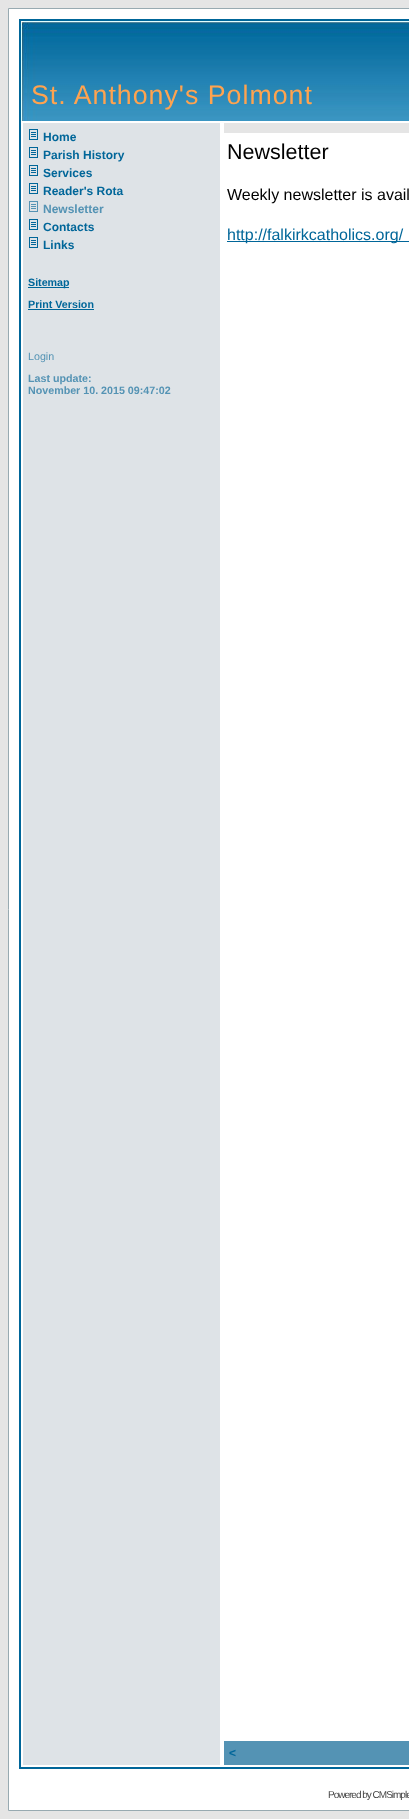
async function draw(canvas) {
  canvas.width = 409;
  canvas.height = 1819;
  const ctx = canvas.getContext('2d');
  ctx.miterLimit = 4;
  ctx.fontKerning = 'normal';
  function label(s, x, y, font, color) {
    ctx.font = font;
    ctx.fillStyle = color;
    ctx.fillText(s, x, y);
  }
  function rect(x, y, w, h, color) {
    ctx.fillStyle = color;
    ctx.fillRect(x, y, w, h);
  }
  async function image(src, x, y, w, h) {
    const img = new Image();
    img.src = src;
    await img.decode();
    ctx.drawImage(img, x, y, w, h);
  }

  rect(0, 0, 409, 1819, '#e5e5e5');
  ctx.fillStyle = '#fff';
  ctx.beginPath();
  ctx.rect(8.5, 8.5, 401, 1802);
  ctx.fill();
  ctx.strokeStyle = '#98aab1';
  ctx.stroke();
  ctx.strokeStyle = '#069';
  ctx.lineWidth = 2;
  ctx.strokeRect(20, 20, 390, 1748);
  await image('assets/img1.png', 21, 21, 388, 100);
  ctx.letterSpacing = '1px';
  label('St. Anthony\'s Polmont', 31, 104, '26.75px Liberation Sans', '#ffa34f');
  rect(23, 123, 197, 1642, '#dee3e7');
  await image('assets/img2.png', 29, 129, 9, 11);
  ctx.letterSpacing = '0px';
  label('Home', 43, 141, 'bold 12px Liberation Sans', '#069');
  await image('assets/img2.png', 29, 147, 9, 11);
  label('Parish History', 43, 159, 'bold 12px Liberation Sans', '#069');
  await image('assets/img2.png', 29, 165, 9, 11);
  label('Services', 43, 177, 'bold 12px Liberation Sans', '#069');
  await image('assets/img2.png', 29, 183, 9, 11);
  label('Reader\'s Rota', 43, 195, 'bold 12px Liberation Sans', '#069');
  await image('assets/img3.png', 29, 201, 9, 11);
  label('Newsletter', 43, 213, 'bold 12px Liberation Sans', '#5493b4');
  await image('assets/img2.png', 29, 219, 9, 11);
  label('Contacts', 43, 231, 'bold 12px Liberation Sans', '#069');
  await image('assets/img2.png', 29, 237, 9, 11);
  label('Links', 43, 249, 'bold 12px Liberation Sans', '#069');
  rect(28, 287, 41, 1, '#069');
  label('Sitemap', 28, 286, 'bold 10.7px Liberation Sans', '#069');
  label('Print Version', 28, 308, 'bold 10.7px Liberation Sans', '#069');
  rect(28, 309, 66, 1, '#069');
  label('Login', 28, 360, '10.7px Liberation Sans', '#5493b4');
  label('Last update:', 28, 382, 'bold 10.7px Liberation Sans', '#5493b4');
  label('November 10. 2015 09:47:02', 28, 394, 'bold 10.7px Liberation Sans', '#5493b4');
  rect(224, 123, 185, 10, '#e5e5e5');
  label('Newsletter', 227, 159, '21.5px Liberation Sans', '#000');
  label('Weekly newsletter is avail', 227, 200, '16px Liberation Sans', '#000');
  rect(227, 241, 182, 1, '#069');
  label('http://falkirkcatholics.org/', 227, 240, '16px Liberation Sans', '#069');
  rect(224, 1741, 185, 24, '#5493b4');
  label('<', 229, 1757, 'bold 12px Liberation Sans', '#069');
  ctx.letterSpacing = '-1px';
  label('Powered by CMSimple', 328, 1798, '10px Liberation Sans', '#444');
}

draw(document.querySelector('canvas'));
